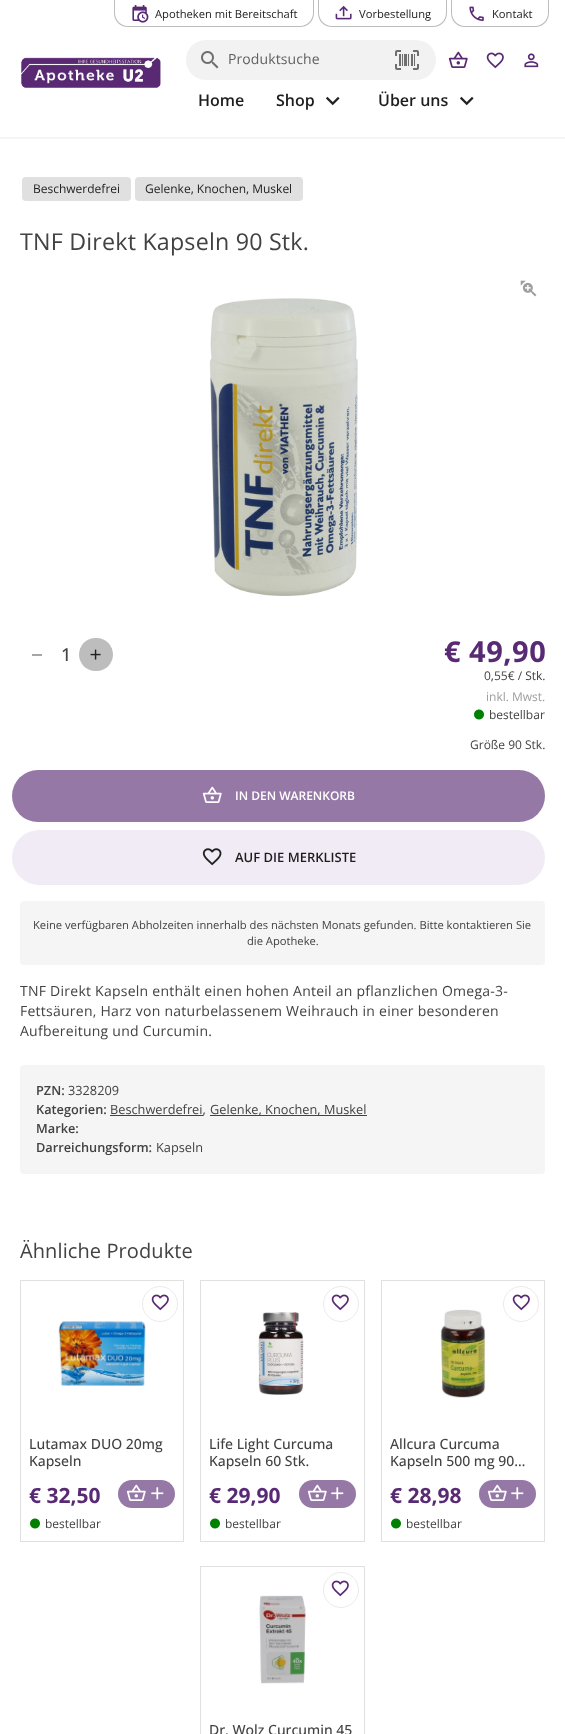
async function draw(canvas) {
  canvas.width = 565;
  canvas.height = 1734;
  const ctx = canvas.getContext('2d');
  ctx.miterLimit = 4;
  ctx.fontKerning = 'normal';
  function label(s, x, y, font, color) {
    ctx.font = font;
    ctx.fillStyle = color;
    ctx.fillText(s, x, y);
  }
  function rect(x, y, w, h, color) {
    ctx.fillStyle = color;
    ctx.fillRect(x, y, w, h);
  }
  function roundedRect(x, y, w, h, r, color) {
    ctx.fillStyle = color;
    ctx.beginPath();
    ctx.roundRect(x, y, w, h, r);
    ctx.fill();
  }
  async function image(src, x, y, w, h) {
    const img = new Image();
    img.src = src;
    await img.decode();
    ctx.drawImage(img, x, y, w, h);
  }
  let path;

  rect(0, 0, 565, 1734, '#fff');
  rect(0, 137, 565, 2, '#f5f5f5');
  ctx.fillStyle = '#bdbdbd';
  path = new Path2D('M114-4H314V13C314 21 308 27 300 27H128C120 27 114 21 114 13ZM115-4H313V13C313 20 307 26 300 26H128C121 26 115 20 115 13Z');
  ctx.fill(path, 'evenodd');
  await image('assets/img1.png', 132, 5, 17, 18);
  label('Apotheken mit Bereitschaft', 155, 18, '11.2px Open Sans', '#1d1d1d');
  ctx.fillStyle = '#bdbdbd';
  path = new Path2D('M318-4H447V13C447 21 441 27 433 27H332C324 27 318 21 318 13ZM319-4H446V13C446 20 440 26 433 26H332C325 26 319 20 319 13Z');
  ctx.fill(path, 'evenodd');
  await image('assets/img2.png', 335, 5, 17, 15);
  label('Vorbestellung', 359, 18, '11.2px Open Sans', '#1d1d1d');
  ctx.fillStyle = '#bdbdbd';
  path = new Path2D('M451-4H549V13C549 21 543 27 535 27H465C457 27 451 21 451 13ZM452-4H548V13C548 20 542 26 535 26H465C458 26 452 20 452 13Z');
  ctx.fill(path, 'evenodd');
  await image('assets/img3.png', 469, 6, 15, 15);
  label('Kontakt', 492, 18, '11.2px Open Sans', '#1d1d1d');
  await image('assets/img4.png', 21, 57, 140, 31);
  roundedRect(186, 40, 250, 40, 20, '#f2f2f2');
  await image('assets/img5.png', 201, 51, 18, 18);
  ctx.letterSpacing = '0.1px';
  label('Produktsuche', 228, 64, '14px Open Sans', '#616161');
  await image('assets/img6.png', 395, 50, 24, 20);
  await image('assets/img7.png', 448, 51, 20, 17);
  await image('assets/img8.png', 486, 52, 18, 17);
  await image('assets/img9.png', 524, 53, 15, 15);
  ctx.letterSpacing = '0px';
  label('Home', 198, 106, '600 16px Open Sans', '#1d1d1d');
  label('Shop', 276, 106, '600 16px Open Sans', '#1d1d1d');
  await image('assets/img10.png', 326, 96, 14, 10);
  label('Über uns', 378, 106, '600 16px Open Sans', '#1d1d1d');
  await image('assets/img10.png', 460, 96, 14, 10);
  roundedRect(22, 177, 109, 24, 4, '#e0e0e0');
  label('Beschwerdefrei', 33, 193, '12px Open Sans', '#1d1d1d');
  roundedRect(135, 177, 168, 24, 4, '#e0e0e0');
  label('Gelenke, Knochen, Muskel', 145, 193, '12px Open Sans', '#1d1d1d');
  ctx.letterSpacing = '0.2px';
  label('TNF Direkt Kapseln 90 Stk.', 20, 250, '23.25px Open Sans', '#424242');
  await image('assets/img11.png', 520, 280, 17, 17);
  await image('assets/img12.png', 209, 298, 149, 298);
  rect(32, 654, 10, 2, '#a6a6a6');
  ctx.letterSpacing = '0px';
  label('1', 61, 661, '500 18px Open Sans', '#424242');
  roundedRect(79, 638, 34, 33, 16.5, '#bdbdbd');
  await image('assets/img13.png', 90, 649, 11, 11);
  ctx.letterSpacing = '0.5px';
  label('€ 49,90', 444, 662, 'bold 29px Open Sans', '#592a74');
  ctx.letterSpacing = '0px';
  label('0,55€ / Stk.', 484, 680, '12px Open Sans', '#424242');
  label('inkl. Mwst.', 486, 701, '12px Open Sans', '#9e9e9e');
  await image('assets/img14.png', 474, 709, 10, 11);
  label('bestellbar', 489, 719, '12px Open Sans', '#424242');
  label('Größe 90 Stk.', 470, 749, '12px Open Sans', '#424242');
  roundedRect(12, 770, 533, 52, 26, '#9578a6');
  await image('assets/img15.png', 202, 786, 20, 17);
  label('IN DEN WARENKORB', 235, 800, '600 12px Open Sans', '#fff');
  roundedRect(12, 830, 533, 55, 27.5, '#f1ebf5');
  await image('assets/img16.png', 202, 848, 20, 18);
  label('AUF DIE MERKLISTE', 235, 862, '600 13px Open Sans', '#1d1d1d');
  roundedRect(20, 901, 525, 64, 4, '#f5f5f5');
  label('Keine verfügbaren Abholzeiten innerhalb des nächsten Monats gefunden. Bitte kontaktieren Sie', 33, 929, '11.2px Open Sans', '#424242');
  label('die Apotheke.', 247, 945, '11.2px Open Sans', '#424242');
  ctx.letterSpacing = '0.25px';
  label('TNF Direkt Kapseln enthält einen hohen Anteil an pflanzlichen Omega-3-', 20, 996, '14px Open Sans', '#424242');
  label('Fettsäuren, Harz von naturbelassenem Weihrauch in einer besonderen', 20, 1016, '14px Open Sans', '#424242');
  label('Aufbereitung und Curcumin.', 20, 1036, '14px Open Sans', '#424242');
  roundedRect(20, 1065, 525, 109, 4, '#f5f5f5');
  ctx.letterSpacing = '0px';
  label('PZN:', 36, 1095, '600 12.75px Open Sans', '#424242');
  label('3328209', 68, 1095, '12.75px Open Sans', '#424242');
  label('Kategorien:', 36, 1114, '600 12.75px Open Sans', '#424242');
  rect(110, 1115, 93, 1, '#424242');
  label('Beschwerdefrei,', 110, 1114, '12.75px Open Sans', '#424242');
  rect(210, 1115, 157, 1, '#424242');
  label('Gelenke, Knochen, Muskel', 210, 1114, '12.75px Open Sans', '#424242');
  label('Marke:', 36, 1133, '600 12.75px Open Sans', '#424242');
  label('Darreichungsform:', 36, 1152, '600 12.75px Open Sans', '#424242');
  label('Kapseln', 156, 1152, '12.75px Open Sans', '#424242');
  ctx.letterSpacing = '0.1px';
  label('Ähnliche Produkte', 20, 1258, '20px Open Sans', '#424242');
  ctx.strokeStyle = '#e0e0e0';
  ctx.strokeRect(20.5, 1280.5, 163, 261);
  await image('assets/img17.png', 58, 1321, 88, 65);
  ctx.beginPath();
  ctx.arc(160, 1304, 17.5, 0, 2 * Math.PI);
  ctx.strokeStyle = '#ebebeb';
  ctx.stroke();
  await image('assets/img8.png', 151, 1294, 18, 17);
  ctx.letterSpacing = '0px';
  label('Lutamax DUO 20mg', 29, 1449, '500 14px Open Sans', '#424242');
  label('Kapseln', 29, 1466, '500 14px Open Sans', '#424242');
  label('€ 32,50', 29, 1503, 'bold 21px Open Sans', '#592a74');
  roundedRect(118, 1480, 57, 28, 14, '#9578a6');
  await image('assets/img15.png', 126, 1484, 20, 17);
  await image('assets/img18.png', 151, 1487, 13, 13);
  await image('assets/img14.png', 30, 1518, 10, 11);
  label('bestellbar', 45, 1528, '12px Open Sans', '#424242');
  ctx.strokeStyle = '#e0e0e0';
  ctx.strokeRect(200.5, 1280.5, 164, 261);
  ctx.beginPath();
  ctx.arc(341, 1304, 17.5, 0, 2 * Math.PI);
  ctx.strokeStyle = '#ebebeb';
  ctx.stroke();
  await image('assets/img8.png', 331, 1294, 18, 17);
  await image('assets/img19.png', 258, 1312, 46, 83);
  label('Life Light Curcuma', 209, 1449, '500 14px Open Sans', '#424242');
  label('Kapseln 60 Stk.', 209, 1466, '500 14px Open Sans', '#424242');
  label('€ 29,90', 209, 1503, 'bold 21px Open Sans', '#592a74');
  roundedRect(299, 1480, 57, 28, 14, '#9578a6');
  await image('assets/img15.png', 307, 1484, 20, 17);
  await image('assets/img18.png', 331, 1487, 13, 13);
  await image('assets/img14.png', 210, 1518, 10, 11);
  label('bestellbar', 225, 1528, '12px Open Sans', '#424242');
  ctx.strokeStyle = '#e0e0e0';
  ctx.strokeRect(381.5, 1280.5, 163, 261);
  ctx.beginPath();
  ctx.arc(521, 1304, 17.5, 0, 2 * Math.PI);
  ctx.strokeStyle = '#ebebeb';
  ctx.stroke();
  await image('assets/img8.png', 512, 1294, 18, 17);
  await image('assets/img20.png', 440, 1309, 46, 89);
  label('Allcura Curcuma', 390, 1449, '500 14px Open Sans', '#424242');
  label('Kapseln 500 mg 90…', 390, 1466, '500 14px Open Sans', '#424242');
  label('€ 28,98', 390, 1503, 'bold 21px Open Sans', '#592a74');
  roundedRect(479, 1480, 57, 28, 14, '#9578a6');
  await image('assets/img15.png', 487, 1484, 20, 17);
  await image('assets/img18.png', 511, 1487, 13, 13);
  await image('assets/img14.png', 391, 1518, 10, 11);
  label('bestellbar', 406, 1528, '12px Open Sans', '#424242');
  ctx.strokeStyle = '#e0e0e0';
  ctx.strokeRect(200.5, 1566.5, 164, 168);
  ctx.beginPath();
  ctx.arc(341, 1590, 17.5, 0, 2 * Math.PI);
  ctx.strokeStyle = '#ebebeb';
  ctx.stroke();
  await image('assets/img8.png', 331, 1580, 18, 17);
  await image('assets/img21.png', 259, 1595, 47, 89);
  label('Dr. Wolz Curcumin 45', 209, 1735, '500 14px Open Sans', '#424242');
}

draw(document.querySelector('canvas'));
